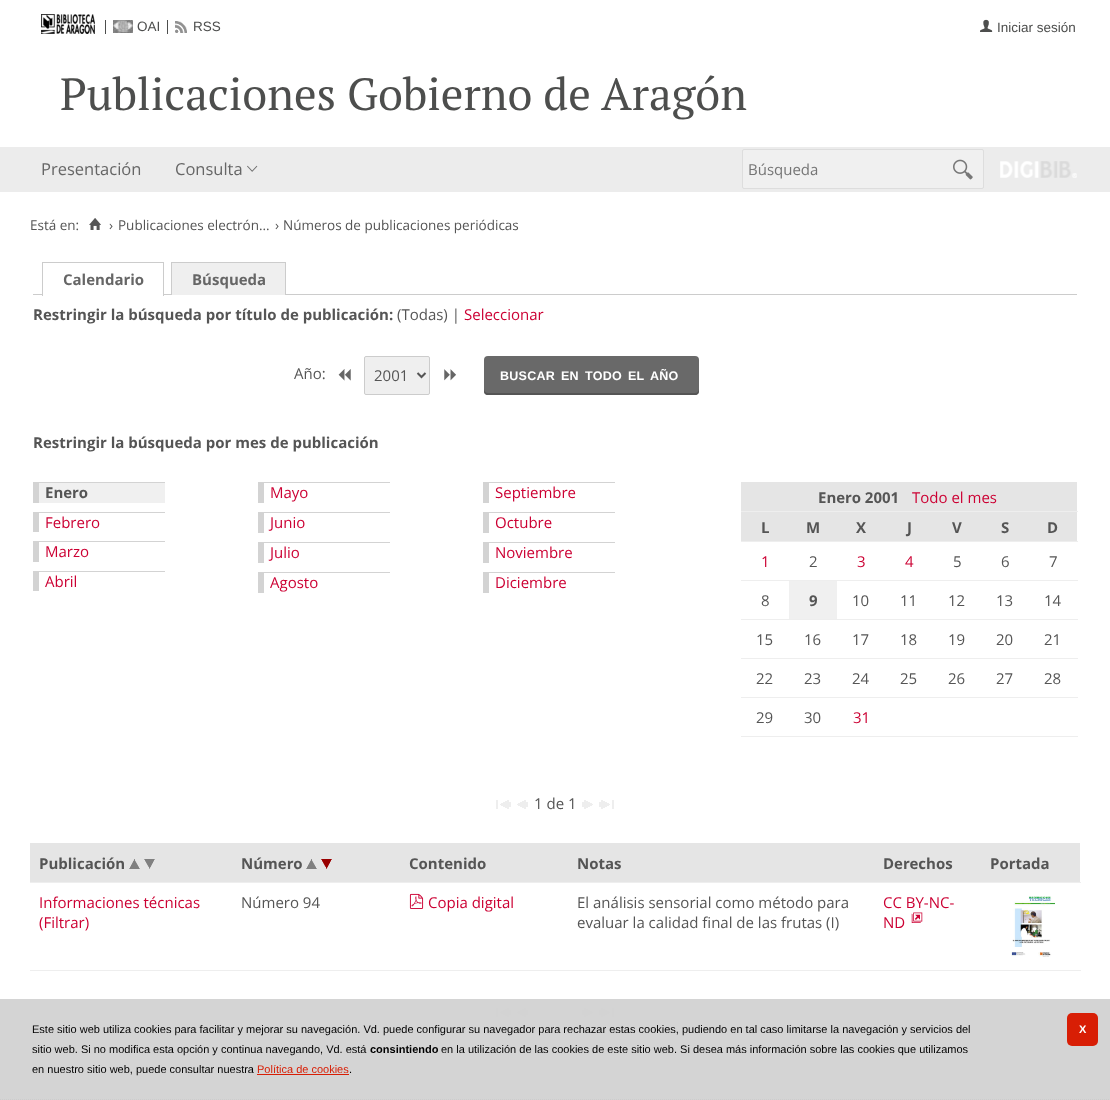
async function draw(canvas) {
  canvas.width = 1110;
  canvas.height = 1100;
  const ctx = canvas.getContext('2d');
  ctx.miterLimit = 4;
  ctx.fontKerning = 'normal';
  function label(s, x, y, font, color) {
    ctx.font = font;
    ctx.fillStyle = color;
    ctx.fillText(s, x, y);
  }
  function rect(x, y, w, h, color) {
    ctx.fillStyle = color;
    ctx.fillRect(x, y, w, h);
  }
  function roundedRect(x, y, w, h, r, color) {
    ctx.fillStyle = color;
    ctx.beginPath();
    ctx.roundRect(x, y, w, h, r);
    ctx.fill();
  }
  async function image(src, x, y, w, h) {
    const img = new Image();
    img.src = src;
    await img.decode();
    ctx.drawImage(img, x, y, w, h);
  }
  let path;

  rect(0, 0, 1110, 1100, '#fff');
  rect(0, 999, 1110, 101, '#d4d4d4');
  await image('assets/img1.png', 41, 14, 54, 20);
  rect(105, 20, 1, 14, '#4d4e4d');
  await image('assets/img2.png', 113, 20, 20, 13);
  label('OAI', 137, 31, '13.5px Liberation Sans', '#4d4e4d');
  rect(167, 20, 1, 14, '#4d4e4d');
  await image('assets/img3.png', 175, 21, 12, 12);
  label('RSS', 193, 31, '13.5px Liberation Sans', '#4d4e4d');
  await image('assets/img4.png', 980, 19, 13, 13);
  label('Iniciar sesión', 997, 32, '13.5px Liberation Sans', '#4d4e4d');
  label('Publicaciones Gobierno de Aragón', 60, 110, '45px PT Serif', '#4d4e4d');
  rect(0, 147, 1110, 45, '#ececec');
  label('Presentación', 41, 175, '16.5px Open Sans', '#666');
  label('Consulta', 175, 175, '16.5px Open Sans', '#666');
  await image('assets/img5.png', 247, 165, 11, 7);
  ctx.fillStyle = '#f0f0f0';
  ctx.beginPath();
  ctx.roundRect(742.5, 149.5, 241, 39, 1.5);
  ctx.fill();
  ctx.strokeStyle = '#ddd';
  ctx.stroke();
  label('Búsqueda', 748, 175, '15px Open Sans', '#757575');
  await image('assets/img6.png', 953, 159, 20, 21);
  await image('assets/img7.png', 1000, 161, 77, 17);
  label('Está en:', 30, 230, '13.5px Open Sans', '#555');
  await image('assets/img8.png', 89, 218, 12, 12);
  label('›', 109, 230, '13.5px Open Sans', '#555');
  label('Publicaciones electrón...', 118, 230, '13.5px Open Sans', '#555');
  label('›', 275, 230, '13.5px Open Sans', '#555');
  label('Números de publicaciones periódicas', 283, 230, '13.5px Open Sans', '#555');
  rect(33, 294, 1044, 1, '#ccc');
  rect(42, 262, 122, 1, '#ccc');
  rect(163, 262, 1, 34, '#ccc');
  rect(42, 262, 1, 34, '#ccc');
  rect(43, 294, 120, 1, '#fff');
  label('Calendario', 63, 285, 'bold 15px Open Sans', '#666');
  rect(171, 262, 115, 1, '#ccc');
  rect(285, 262, 1, 33, '#ccc');
  rect(171, 262, 1, 33, '#ccc');
  rect(172, 263, 113, 32, '#efefef');
  label('Búsqueda', 192, 285, 'bold 15px Open Sans', '#666');
  label('Restringir la búsqueda por título de publicación:', 33, 320, 'bold 15px Open Sans', '#555');
  label('(Todas) |', 397, 320, '15px Open Sans', '#555');
  label('Seleccionar', 464, 320, '15px Open Sans', '#c03');
  label('Año:', 294, 379, '15px Open Sans', '#555');
  await image('assets/img9.png', 338, 369, 13, 12);
  ctx.fillStyle = '#efefef';
  ctx.beginPath();
  ctx.roundRect(364.5, 356.5, 65, 38, 1.5);
  ctx.fill();
  ctx.strokeStyle = '#ccc';
  ctx.stroke();
  path = new Path2D('M417.5 373L421.5 377L425.5 373');
  ctx.strokeStyle = '#555';
  ctx.lineWidth = 2;
  ctx.stroke(path);
  label('2001', 374, 381, '15px Open Sans', '#555');
  await image('assets/img10.png', 444, 369, 12, 12);
  roundedRect(484, 356, 215, 39, 4, '#696969');
  ctx.fillStyle = '#555';
  path = new Path2D('M484 389C484 392 484 394 487 395H696C699 394 699 392 699 389C699 391 697 393 695 393H488C486 393 484 391 484 389Z');
  ctx.fill(path);
  ctx.letterSpacing = '0.25px';
  label('BUSCAR', 500, 380, 'bold 12.5px Liberation Sans', '#fff');
  label('EN', 561, 380, 'bold 12.5px Liberation Sans', '#fff');
  label('TODO', 585, 380, 'bold 12.5px Liberation Sans', '#fff');
  label('EL', 628, 380, 'bold 12.5px Liberation Sans', '#fff');
  label('AÑO', 650, 380, 'bold 12.5px Liberation Sans', '#fff');
  ctx.letterSpacing = '0px';
  label('Restringir la búsqueda por mes de publicación', 33, 448, 'bold 15px Open Sans', '#555');
  rect(39, 483, 126, 20, '#f0f0f0');
  rect(33, 482, 132, 1, '#d3d3d3');
  rect(33, 482, 6, 21, '#d3d3d3');
  label('Enero', 45, 498, 'bold 15px Open Sans', '#555');
  rect(258, 482, 132, 1, '#d3d3d3');
  rect(258, 482, 6, 21, '#d3d3d3');
  label('Mayo', 270, 498, '15px Open Sans', '#c03');
  rect(483, 482, 132, 1, '#d3d3d3');
  rect(483, 482, 6, 21, '#d3d3d3');
  label('Septiembre', 495, 498, '15px Open Sans', '#c03');
  rect(33, 512, 132, 1, '#d3d3d3');
  rect(33, 512, 6, 20, '#d3d3d3');
  label('Febrero', 45, 528, '15px Open Sans', '#c03');
  rect(258, 512, 132, 1, '#d3d3d3');
  rect(258, 512, 6, 21, '#d3d3d3');
  label('Junio', 270, 528, '15px Open Sans', '#c03');
  rect(483, 512, 132, 1, '#d3d3d3');
  rect(483, 512, 6, 21, '#d3d3d3');
  label('Octubre', 495, 528, '15px Open Sans', '#c03');
  rect(33, 541, 132, 1, '#d3d3d3');
  rect(33, 541, 6, 21, '#d3d3d3');
  label('Marzo', 45, 557, '15px Open Sans', '#c03');
  rect(258, 542, 132, 1, '#d3d3d3');
  rect(258, 542, 6, 21, '#d3d3d3');
  label('Julio', 270, 558, '15px Open Sans', '#c03');
  rect(483, 542, 132, 1, '#d3d3d3');
  rect(483, 542, 6, 21, '#d3d3d3');
  label('Noviembre', 495, 558, '15px Open Sans', '#c03');
  rect(33, 571, 132, 1, '#d3d3d3');
  rect(33, 571, 6, 20, '#d3d3d3');
  label('Abril', 45, 587, '15px Open Sans', '#c03');
  rect(258, 572, 132, 1, '#d3d3d3');
  rect(258, 572, 6, 21, '#d3d3d3');
  label('Agosto', 270, 588, '15px Open Sans', '#c03');
  rect(483, 572, 132, 1, '#d3d3d3');
  rect(483, 572, 6, 21, '#d3d3d3');
  label('Diciembre', 495, 588, '15px Open Sans', '#c03');
  rect(741, 482, 336, 29, '#e5e5e5');
  rect(741, 511, 337, 1, '#eee');
  label('Enero 2001', 818, 503, 'bold 15px Open Sans', '#555');
  label('Todo el mes', 912, 503, '15px Open Sans', '#c03');
  rect(741, 512, 336, 29, '#e5e5e5');
  label('L', 761, 533, 'bold 15px Open Sans', '#555');
  label('M', 806, 533, 'bold 15px Open Sans', '#555');
  label('X', 856, 533, 'bold 15px Open Sans', '#555');
  label('J', 907, 533, 'bold 15px Open Sans', '#555');
  label('V', 952, 533, 'bold 15px Open Sans', '#555');
  label('S', 1001, 533, 'bold 15px Open Sans', '#555');
  rect(741, 541, 337, 1, '#eee');
  label('D', 1047, 533, 'bold 15px Open Sans', '#555');
  label('1', 761, 567, '15px Open Sans', '#c03');
  label('2', 809, 567, '15px Open Sans', '#555');
  label('3', 857, 567, '15px Open Sans', '#c03');
  label('4', 905, 567, '15px Open Sans', '#c03');
  label('5', 953, 567, '15px Open Sans', '#555');
  label('6', 1001, 567, '15px Open Sans', '#555');
  rect(741, 580, 337, 1, '#eee');
  label('7', 1049, 567, '15px Open Sans', '#555');
  label('8', 761, 606, '15px Open Sans', '#555');
  rect(789, 581, 48, 38, '#f0f0f0');
  label('9', 809, 606, 'bold 15px Open Sans', '#555');
  label('10', 852, 606, '15px Open Sans', '#555');
  label('11', 900, 606, '15px Open Sans', '#555');
  label('12', 948, 606, '15px Open Sans', '#555');
  label('13', 996, 606, '15px Open Sans', '#555');
  rect(741, 619, 337, 1, '#eee');
  label('14', 1044, 606, '15px Open Sans', '#555');
  label('15', 756, 645, '15px Open Sans', '#555');
  label('16', 804, 645, '15px Open Sans', '#555');
  label('17', 852, 645, '15px Open Sans', '#555');
  label('18', 900, 645, '15px Open Sans', '#555');
  label('19', 948, 645, '15px Open Sans', '#555');
  label('20', 996, 645, '15px Open Sans', '#555');
  rect(741, 658, 337, 1, '#eee');
  label('21', 1044, 645, '15px Open Sans', '#555');
  label('22', 756, 684, '15px Open Sans', '#555');
  label('23', 804, 684, '15px Open Sans', '#555');
  label('24', 852, 684, '15px Open Sans', '#555');
  label('25', 900, 684, '15px Open Sans', '#555');
  label('26', 948, 684, '15px Open Sans', '#555');
  label('27', 996, 684, '15px Open Sans', '#555');
  rect(741, 697, 337, 1, '#eee');
  label('28', 1044, 684, '15px Open Sans', '#555');
  label('29', 756, 723, '15px Open Sans', '#555');
  label('30', 804, 723, '15px Open Sans', '#555');
  label('31', 853, 723, '15px Open Sans', '#c03');
  rect(741, 736, 337, 1, '#eee');
  await image('assets/img11.png', 496, 800, 15, 9);
  await image('assets/img12.png', 517, 800, 11, 9);
  label('1 de 1', 534, 809, '15px Open Sans', '#555');
  await image('assets/img13.png', 582, 800, 11, 9);
  await image('assets/img14.png', 599, 800, 15, 9);
  rect(30, 843, 1050, 39, '#e5e5e5');
  label('Publicación', 39, 869, 'bold 15px Open Sans', '#555');
  await image('assets/img15.png', 129, 859, 11, 10);
  await image('assets/img16.png', 144, 859, 11, 10);
  label('Número', 241, 869, 'bold 15px Open Sans', '#555');
  await image('assets/img15.png', 306, 859, 11, 10);
  await image('assets/img17.png', 321, 859, 11, 10);
  label('Contenido', 409, 869, 'bold 15px Open Sans', '#555');
  label('Notas', 577, 869, 'bold 15px Open Sans', '#555');
  label('Derechos', 883, 869, 'bold 15px Open Sans', '#555');
  rect(30, 882, 1051, 1, '#eee');
  label('Portada', 990, 869, 'bold 15px Open Sans', '#555');
  rect(30, 970, 1051, 1, '#eee');
  await image('assets/img18.png', 1011, 896, 44, 61);
  label('Informaciones técnicas', 39, 908, '15px Open Sans', '#c03');
  label('(Filtrar)', 39, 928, '15px Open Sans', '#c03');
  label('Número 94', 241, 908, '15px Open Sans', '#555');
  await image('assets/img19.png', 409, 893, 15, 16);
  label('Copia digital', 428, 908, '15px Open Sans', '#c03');
  label('El análisis sensorial como método para', 577, 908, '15px Open Sans', '#555');
  label('evaluar la calidad final de las frutas (I)', 577, 928, '15px Open Sans', '#555');
  label('CC BY-NC-', 883, 908, '15px Open Sans', '#c03');
  label('ND', 883, 928, '15px Open Sans', '#c03');
  await image('assets/img20.png', 911, 912, 12, 11);
  await image('assets/img21.png', 496, 1008, 15, 9);
  await image('assets/img22.png', 517, 1008, 11, 9);
  await image('assets/img23.png', 582, 1008, 11, 9);
  await image('assets/img24.png', 599, 1008, 15, 9);
  path = new Path2D('M0 1099.5H1110');
  ctx.strokeStyle = '#ccc';
  ctx.lineWidth = 1;
  ctx.setLineDash([1, 1]);
  ctx.stroke(path);
  label('Este sitio web utiliza cookies para facilitar y mejorar su navegación. Vd. puede configurar su navegador para rechazar estas cookies, pudiendo en tal caso limitarse la navegación y servicios del', 32, 1033, '11px Liberation Sans', '#000');
  label('sitio web. Si no modifica esta opción y continua navegando, Vd. está', 32, 1053, '11px Liberation Sans', '#000');
  label('consintiendo', 370, 1053, 'bold 11px Liberation Sans', '#000');
  label('en la utilización de las cookies de este sitio web. Si desea más información sobre las cookies que utilizamos', 441, 1053, '11px Liberation Sans', '#000');
  label('en nuestro sitio web, puede consultar nuestra', 32, 1073, '11px Liberation Sans', '#000');
  label('Política de cookies', 257, 1073, '11px Liberation Sans', '#d81e05');
  label('.', 349, 1073, '11px Liberation Sans', '#000');
  rect(257, 1074, 92, 1, '#d81e05');
  roundedRect(1067, 1013, 31, 33, 5, '#d81e05');
  ctx.letterSpacing = '-1px';
  label('X', 1079, 1033, 'bold 11px Liberation Sans', '#fff');
}

draw(document.querySelector('canvas'));
